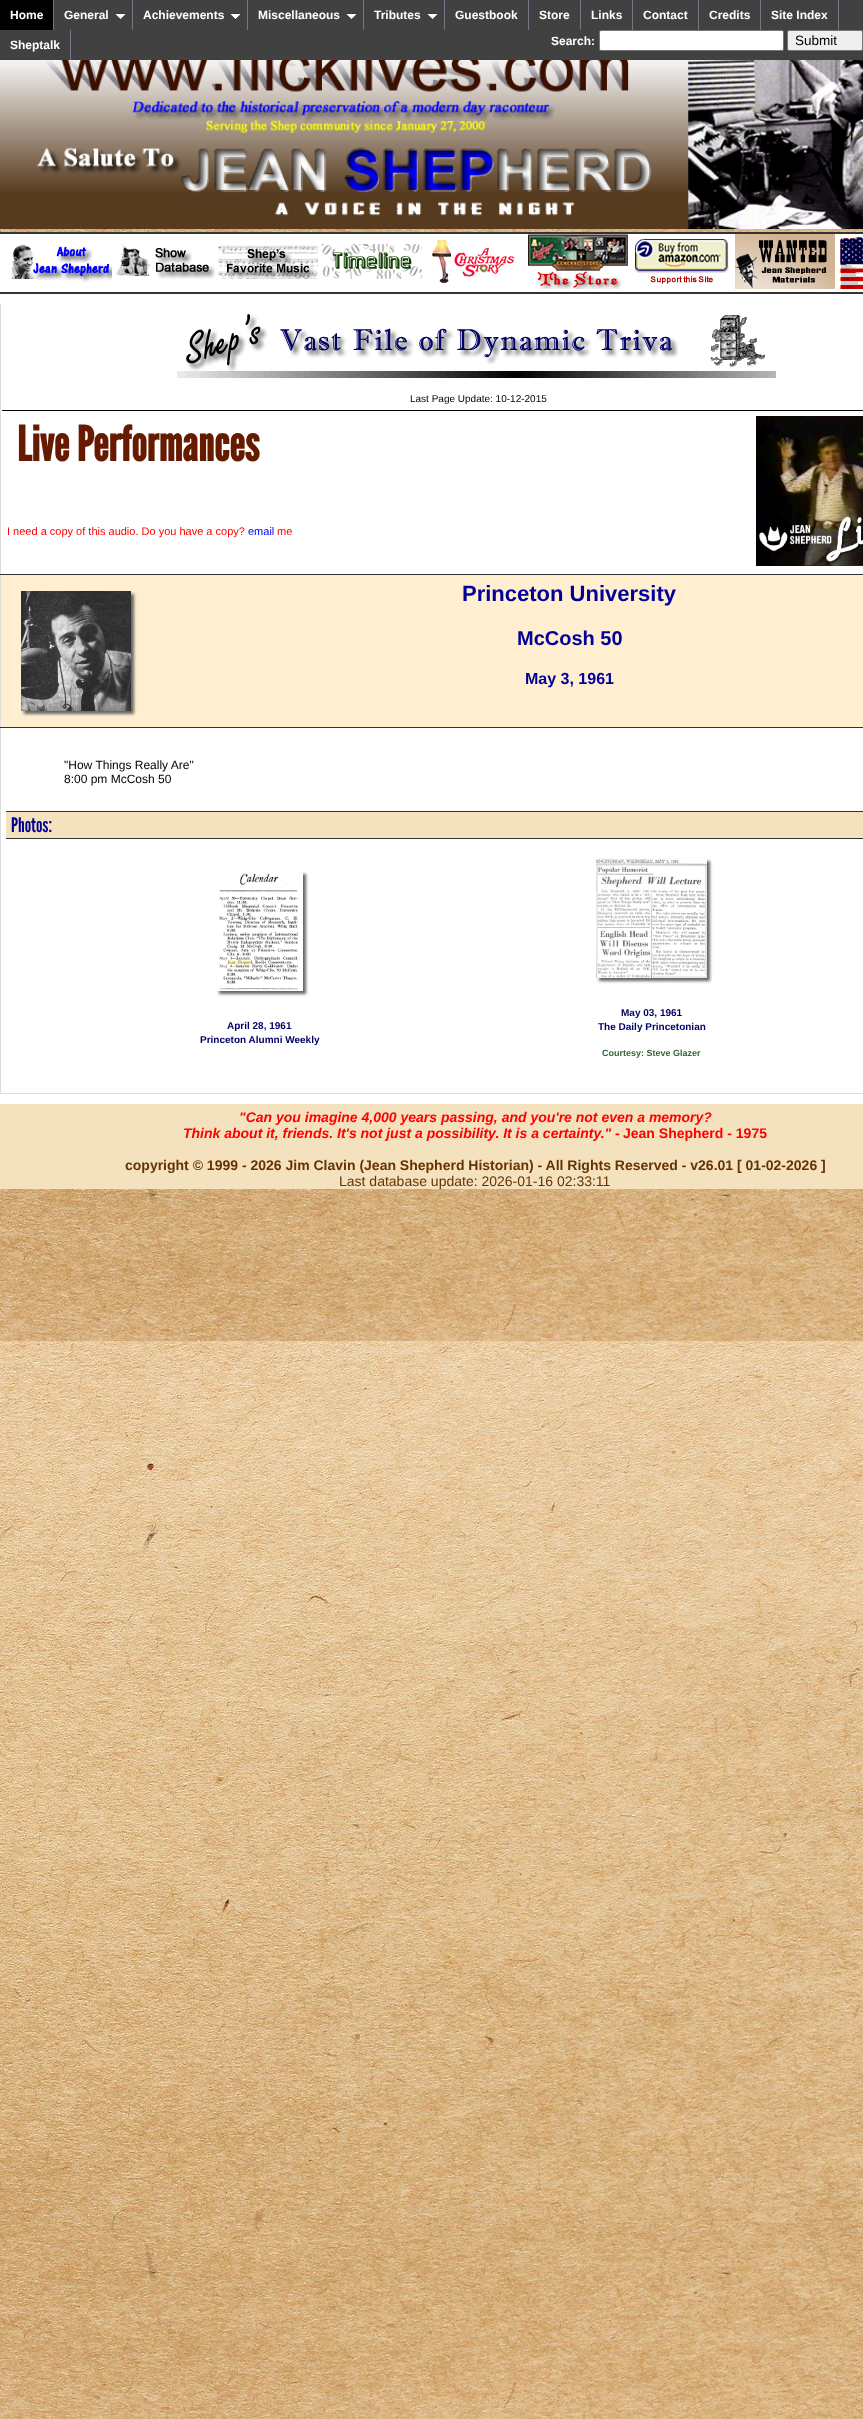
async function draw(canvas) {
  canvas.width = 863;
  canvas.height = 2419;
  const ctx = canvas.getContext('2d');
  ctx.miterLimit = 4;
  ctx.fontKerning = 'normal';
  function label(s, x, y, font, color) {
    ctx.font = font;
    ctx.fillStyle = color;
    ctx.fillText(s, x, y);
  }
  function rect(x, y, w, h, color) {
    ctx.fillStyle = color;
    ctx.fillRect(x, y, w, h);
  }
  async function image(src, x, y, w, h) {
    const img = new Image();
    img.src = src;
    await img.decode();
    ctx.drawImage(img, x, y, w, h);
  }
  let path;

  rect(0, 0, 863, 2419, '#fff');
  await image('assets/img1.png', 0, 229, 863, 2190);
  rect(0, 0, 863, 60, '#414141');
  rect(0, 0, 53, 30, '#000');
  rect(53, 0, 1, 30, '#778');
  label('Home', 10, 19, 'bold 12px Liberation Sans', '#fff');
  rect(132, 0, 1, 30, '#778');
  label('General', 64, 19, 'bold 12px Liberation Sans', '#fff');
  await image('assets/img2.png', 115, 13, 11, 7);
  rect(247, 0, 1, 30, '#778');
  label('Achievements', 143, 19, 'bold 12px Liberation Sans', '#fff');
  await image('assets/img2.png', 230, 13, 11, 7);
  rect(363, 0, 1, 30, '#778');
  label('Miscellaneous', 258, 19, 'bold 12px Liberation Sans', '#fff');
  await image('assets/img2.png', 346, 13, 11, 7);
  rect(444, 0, 1, 30, '#778');
  label('Tributes', 374, 19, 'bold 12px Liberation Sans', '#fff');
  await image('assets/img2.png', 427, 13, 11, 7);
  rect(528, 0, 1, 30, '#778');
  label('Guestbook', 455, 19, 'bold 12px Liberation Sans', '#fff');
  rect(580, 0, 1, 30, '#778');
  label('Store', 539, 19, 'bold 12px Liberation Sans', '#fff');
  rect(632, 0, 1, 30, '#778');
  label('Links', 591, 19, 'bold 12px Liberation Sans', '#fff');
  rect(698, 0, 1, 30, '#778');
  label('Contact', 643, 19, 'bold 12px Liberation Sans', '#fff');
  rect(760, 0, 1, 30, '#778');
  label('Credits', 709, 19, 'bold 12px Liberation Sans', '#fff');
  rect(838, 0, 1, 30, '#778');
  label('Site Index', 771, 19, 'bold 12px Liberation Sans', '#fff');
  rect(70, 30, 1, 30, '#778');
  label('Sheptalk', 10, 49, 'bold 12px Liberation Sans', '#fff');
  label('Search:', 551, 45, 'bold 12px Liberation Sans', '#fff');
  ctx.beginPath();
  ctx.roundRect(599.5, 30.5, 184, 20, 1.5);
  ctx.fill();
  ctx.strokeStyle = '#767676';
  ctx.stroke();
  ctx.fillStyle = '#efefef';
  ctx.beginPath();
  ctx.roundRect(787.5, 30.5, 75, 20, 1.5);
  ctx.fill();
  ctx.stroke();
  label('Submit', 795, 45, '13.5px Liberation Sans', '#000');
  await image('assets/img3.png', 0, 60, 863, 169);
  rect(0, 234, 863, 58, '#fff');
  rect(0, 232, 863, 2, '#333');
  rect(0, 292, 863, 2, '#333');
  await image('assets/img4.png', 12, 245, 100, 38);
  await image('assets/img5.png', 116, 244, 99, 35);
  await image('assets/img6.png', 218, 244, 100, 35);
  await image('assets/img7.png', 322, 244, 100, 35);
  await image('assets/img8.png', 432, 240, 83, 43);
  await image('assets/img9.png', 528, 234, 100, 55);
  await image('assets/img10.png', 635, 239, 94, 45);
  await image('assets/img11.png', 735, 234, 100, 55);
  await image('assets/img12.png', 840, 237, 23, 52);
  rect(0, 294, 863, 810, '#fff');
  rect(0, 1093, 863, 1, '#ddd');
  rect(0, 304, 1, 790, '#ddd');
  await image('assets/img13.png', 177, 314, 599, 64);
  rect(2, 410, 861, 1, '#000');
  label('Last Page Update: 10-12-2015', 410, 402, '10px Liberation Sans', '#000');
  label('Live Performances', 17, 461, 'bold 48px League Gothic', '#661a00');
  label('I need a copy of this audio. Do you have a copy?', 7, 535, '11px Liberation Sans', '#f00');
  label('email', 248, 535, '11px Liberation Sans', '#00f');
  label('me', 277, 535, '11px Liberation Sans', '#f00');
  await image('assets/img14.png', 756, 416, 107, 150);
  rect(1, 575, 862, 152, '#ffeecf');
  rect(0, 574, 863, 1, '#333');
  rect(0, 727, 863, 1, '#333');
  ctx.fillStyle = '#666';
  ctx.filter = 'blur(1.5px)';
  ctx.beginPath();
  ctx.rect(24, 594, 110, 120);
  ctx.fill();
  ctx.filter = 'none';
  await image('assets/img15.png', 21, 591, 110, 120);
  label('Princeton University', 462, 601, 'bold 22px Liberation Sans', '#009');
  label('McCosh 50', 517, 645, 'bold 20px Liberation Sans', '#009');
  label('May 3, 1961', 525, 684, 'bold 16px Liberation Sans', '#009');
  label('"How Things Really Are"', 64, 769, '12px Liberation Sans', '#000');
  label('8:00 pm McCosh 50', 64, 783, '12px Liberation Sans', '#000');
  rect(6, 812, 857, 26, '#f4e1be');
  rect(6, 811, 857, 1, '#333');
  rect(6, 838, 857, 1, '#333');
  label('Photos:', 11, 832, '20px League Gothic', '#009');
  ctx.save();
  path = new Path2D('M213 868H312V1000H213ZM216 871H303V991H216Z');
  ctx.clip(path, 'evenodd');
  ctx.fillStyle = '#666';
  ctx.filter = 'blur(1.5px)';
  ctx.beginPath();
  ctx.rect(219, 874, 87, 120);
  ctx.fill();
  ctx.filter = 'none';
  ctx.restore();
  await image('assets/img16.png', 219, 873, 79, 117);
  label('April 28, 1961', 227, 1029, 'bold 10px Liberation Sans', '#006');
  label('Princeton Alumni Weekly', 200, 1043, 'bold 10px Liberation Sans', '#006');
  ctx.fillStyle = '#666';
  ctx.filter = 'blur(1.5px)';
  ctx.beginPath();
  ctx.rect(599, 861, 111, 120);
  ctx.fill();
  ctx.filter = 'none';
  await image('assets/img17.png', 596, 859, 111, 119);
  label('May 03, 1961', 621, 1016, 'bold 10px Liberation Sans', '#006');
  label('The Daily Princetonian', 598, 1030, 'bold 10px Liberation Sans', '#006');
  label('Courtesy: Steve Glazer', 602, 1056, 'bold 9px Liberation Sans', '#363');
  rect(0, 1104, 863, 85, '#f4e1be');
  label('"Can you imagine 4,000 years passing, and you\'re not even a memory?', 239, 1122, 'italic bold 14px Liberation Sans', '#f00');
  label('Think about it, friends. It\'s not just a possibility. It is a certainty." -', 183, 1138, 'italic bold 14px Liberation Sans', '#f00');
  label('Jean Shepherd - 1975', 623, 1138, 'bold 14px Liberation Sans', '#f00');
  label('copyright © 1999 - 2026 Jim Clavin (Jean Shepherd Historian) - All Rights Reserved - v26.01 [ 01-02-2026 ]', 125, 1170, 'bold 14px Liberation Sans', '#630');
  label('Last database update: 2026-01-16 02:33:11', 339, 1186, '14px Liberation Sans', '#630');
}

draw(document.querySelector('canvas'));
